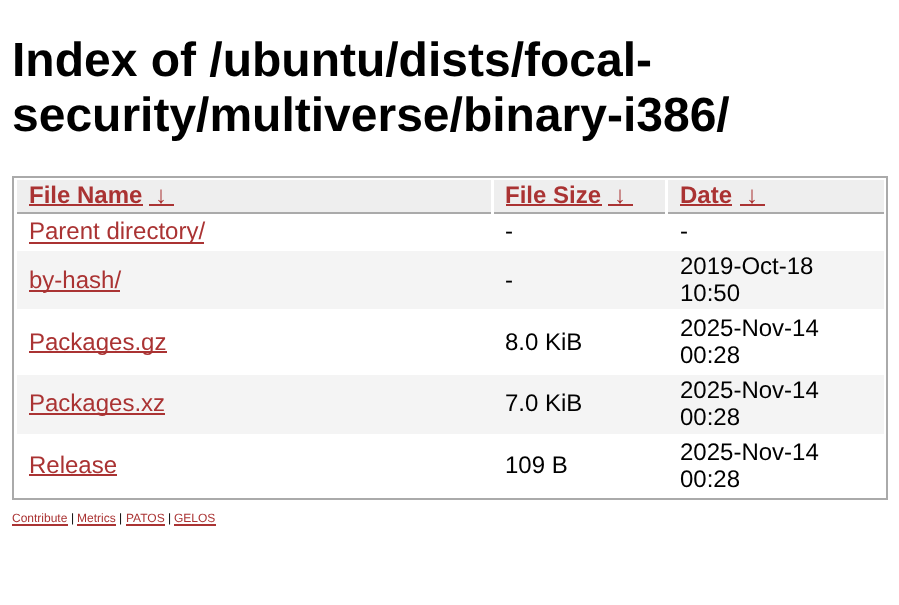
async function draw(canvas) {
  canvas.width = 899;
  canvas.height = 605;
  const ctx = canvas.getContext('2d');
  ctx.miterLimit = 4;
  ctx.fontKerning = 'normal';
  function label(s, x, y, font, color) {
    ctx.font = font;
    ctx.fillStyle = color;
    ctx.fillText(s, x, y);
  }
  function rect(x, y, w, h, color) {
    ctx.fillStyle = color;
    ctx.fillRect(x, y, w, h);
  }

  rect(0, 0, 899, 605, '#fff');
  label('Index of /ubuntu/dists/focal-', 12, 76, 'bold 48px Liberation Sans', '#000');
  label('security/multiverse/binary-i386/', 12, 131, 'bold 48px Liberation Sans', '#000');
  ctx.strokeStyle = '#aaa';
  ctx.lineWidth = 2;
  ctx.strokeRect(13, 177, 874, 322);
  rect(17, 180, 474, 32, '#eee');
  rect(17, 212, 474, 2, '#aaa');
  label('File Name', 29, 203, 'bold 24px Liberation Sans', '#a33');
  rect(29, 204, 114, 2, '#a33');
  label('↓', 155, 203, 'bold 24px Liberation Sans', '#a33');
  rect(149, 204, 25, 2, '#a33');
  rect(494, 180, 171, 32, '#eee');
  rect(494, 212, 171, 2, '#aaa');
  label('File Size', 505, 203, 'bold 24px Liberation Sans', '#a33');
  rect(506, 204, 96, 2, '#a33');
  label('↓', 614, 203, 'bold 24px Liberation Sans', '#a33');
  rect(608, 204, 25, 2, '#a33');
  rect(668, 180, 216, 32, '#eee');
  rect(668, 212, 216, 2, '#aaa');
  label('Date', 680, 203, 'bold 24px Liberation Sans', '#a33');
  rect(680, 204, 52, 2, '#a33');
  label('↓', 746, 203, 'bold 24px Liberation Sans', '#a33');
  rect(740, 204, 25, 2, '#a33');
  rect(29, 242, 175, 2, '#a33');
  label('Parent directory/', 29, 239, '24px Liberation Sans', '#a33');
  label('-', 505, 239, '24px Liberation Sans', '#000');
  label('-', 680, 239, '24px Liberation Sans', '#000');
  rect(17, 251, 867, 58, '#f4f4f4');
  rect(29, 290, 91, 2, '#a33');
  label('by-hash/', 29, 288, '24px Liberation Sans', '#a33');
  label('-', 505, 288, '24px Liberation Sans', '#000');
  label('2019-Oct-18', 680, 274, '24px Liberation Sans', '#000');
  label('10:50', 680, 301, '24px Liberation Sans', '#000');
  rect(29, 351, 138, 2, '#a33');
  label('Packages.gz', 29, 350, '24px Liberation Sans', '#a33');
  label('8.0 KiB', 505, 350, '24px Liberation Sans', '#000');
  label('2025-Nov-14', 680, 336, '24px Liberation Sans', '#000');
  label('00:28', 680, 363, '24px Liberation Sans', '#000');
  rect(17, 375, 867, 59, '#f4f4f4');
  rect(29, 413, 136, 2, '#a33');
  label('Packages.xz', 29, 411, '24px Liberation Sans', '#a33');
  label('7.0 KiB', 505, 411, '24px Liberation Sans', '#000');
  label('2025-Nov-14', 680, 398, '24px Liberation Sans', '#000');
  label('00:28', 680, 425, '24px Liberation Sans', '#000');
  label('Release', 29, 473, '24px Liberation Sans', '#a33');
  rect(29, 474, 88, 2, '#a33');
  label('109 B', 505, 473, '24px Liberation Sans', '#000');
  label('2025-Nov-14', 680, 460, '24px Liberation Sans', '#000');
  label('00:28', 680, 487, '24px Liberation Sans', '#000');
  label('Contribute', 12, 522, '12px Liberation Sans', '#a33');
  rect(12, 524, 56, 2, '#a33');
  label('|', 71, 522, '12px Liberation Sans', '#000');
  label('Metrics', 77, 522, '12px Liberation Sans', '#a33');
  rect(77, 524, 39, 2, '#a33');
  label('|', 119, 522, '12px Liberation Sans', '#000');
  label('PATOS', 126, 522, '12px Liberation Sans', '#a33');
  rect(126, 524, 39, 2, '#a33');
  label('|', 168, 522, '12px Liberation Sans', '#000');
  label('GELOS', 174, 522, '12px Liberation Sans', '#a33');
  rect(174, 524, 42, 2, '#a33');
}

draw(document.querySelector('canvas'));
